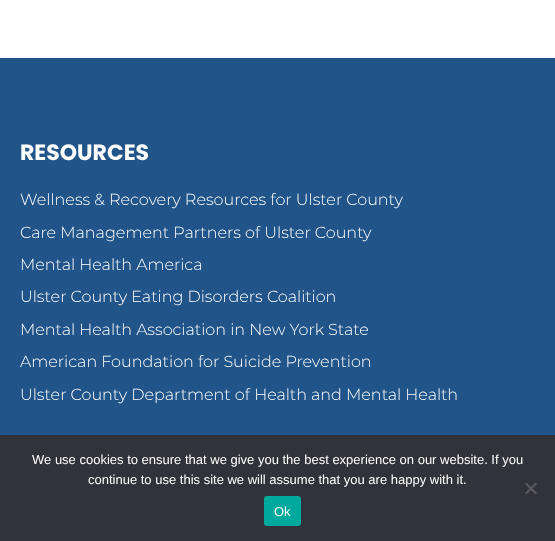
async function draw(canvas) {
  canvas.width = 555;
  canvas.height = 541;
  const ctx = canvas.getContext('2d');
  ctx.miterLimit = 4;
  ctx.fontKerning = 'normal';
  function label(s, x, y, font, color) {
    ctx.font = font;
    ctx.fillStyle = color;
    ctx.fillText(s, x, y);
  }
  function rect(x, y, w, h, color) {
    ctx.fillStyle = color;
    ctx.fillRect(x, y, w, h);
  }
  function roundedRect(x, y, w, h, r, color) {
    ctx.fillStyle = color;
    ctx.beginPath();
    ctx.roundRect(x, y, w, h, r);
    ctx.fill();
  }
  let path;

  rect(0, 0, 555, 541, '#fff');
  rect(0, 58, 555, 377, '#21558a');
  label('RESOURCES', 20, 160, 'bold 22px Poppins', '#fff');
  label('Wellness & Recovery Resources for Ulster County', 20, 205, '300 16px Montserrat', '#fff');
  label('Care Management Partners of Ulster County', 20, 238, '300 16px Montserrat', '#fff');
  label('Mental Health America', 20, 270, '300 16px Montserrat', '#fff');
  label('Ulster County Eating Disorders Coalition', 20, 302, '300 16px Montserrat', '#fff');
  label('Mental Health Association in New York State', 20, 335, '300 16px Montserrat', '#fff');
  label('American Foundation for Suicide Prevention', 20, 367, '300 16px Montserrat', '#fff');
  label('Ulster County Department of Health and Mental Health', 20, 400, '300 16px Montserrat', '#fff');
  rect(0, 435, 555, 106, '#32323a');
  label('We use cookies to ensure that we give you the best experience on our website. If you', 32, 464, '13px Liberation Sans', '#fff');
  label('continue to use this site we will assume that you are happy with it.', 88, 484, '13px Liberation Sans', '#fff');
  ctx.fillStyle = '#59595d';
  path = new Path2D('M535.5 482.5L537 484L526.5 494.5L525 493Z');
  ctx.fill(path);
  path = new Path2D('M525 484L526.5 482.5L537 493L535.5 494.5Z');
  ctx.fill(path);
  roundedRect(264, 496, 37, 30, 3, '#00a99d');
  label('Ok', 274, 516, '13px Liberation Sans', '#fff');
}

draw(document.querySelector('canvas'));
